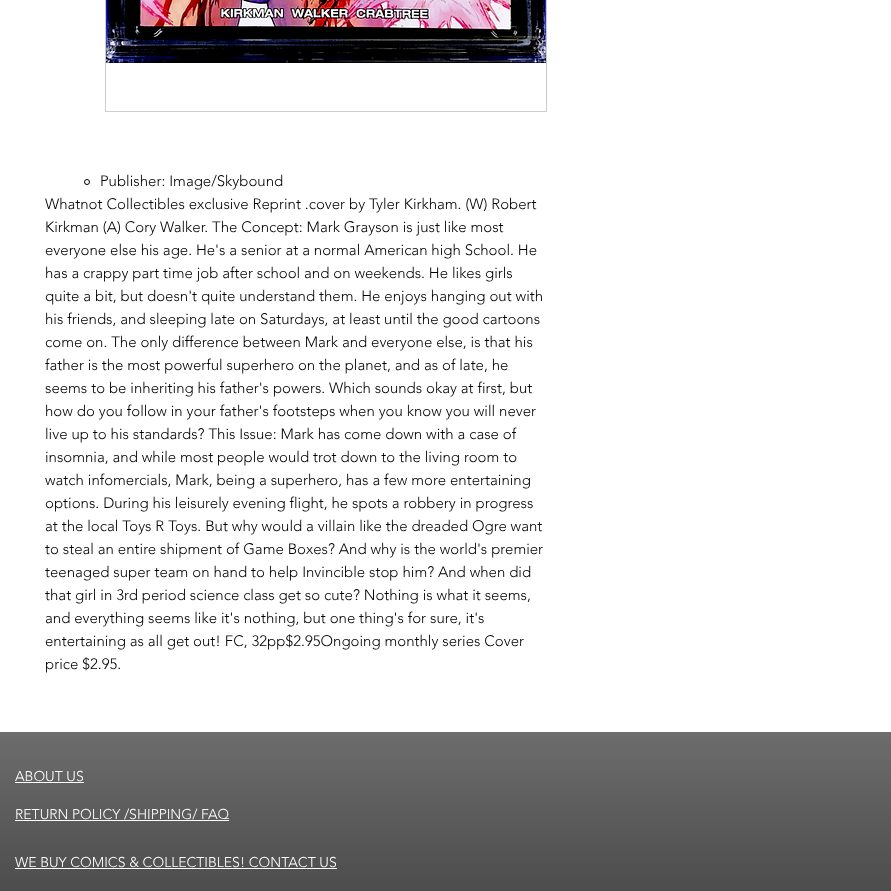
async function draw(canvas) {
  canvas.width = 891;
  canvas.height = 891;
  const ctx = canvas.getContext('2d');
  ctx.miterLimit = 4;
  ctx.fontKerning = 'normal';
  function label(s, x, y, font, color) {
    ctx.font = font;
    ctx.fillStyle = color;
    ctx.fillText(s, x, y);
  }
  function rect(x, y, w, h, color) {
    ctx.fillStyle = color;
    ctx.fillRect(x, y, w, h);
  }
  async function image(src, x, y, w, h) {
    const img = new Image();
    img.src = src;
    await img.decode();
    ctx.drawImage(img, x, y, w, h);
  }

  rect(0, 0, 891, 891, '#fff');
  ctx.strokeStyle = '#ccc';
  ctx.strokeRect(105.5, -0.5, 441, 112);
  await image('assets/img1.png', 106, 0, 440, 63);
  ctx.beginPath();
  ctx.arc(87, 182, 2.5, 0, 2 * Math.PI);
  ctx.strokeStyle = '#000';
  ctx.stroke();
  label('Publisher: Image/Skybound', 100, 186, '300 15px "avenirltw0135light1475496"', '#000');
  label('Whatnot Collectibles exclusive Reprint .cover by Tyler Kirkham. (W) Robert', 45, 209, '300 15px "avenirltw0135light1475496"', '#000');
  label('Kirkman (A) Cory Walker. The Concept: Mark Grayson is just like most', 45, 232, '300 15px "avenirltw0135light1475496"', '#000');
  label('everyone else his age. He\'s a senior at a normal American high School. He', 45, 255, '300 15px "avenirltw0135light1475496"', '#000');
  label('has a crappy part time job after school and on weekends. He likes girls', 45, 278, '300 15px "avenirltw0135light1475496"', '#000');
  label('quite a bit, but doesn\'t quite understand them. He enjoys hanging out with', 45, 301, '300 15px "avenirltw0135light1475496"', '#000');
  label('his friends, and sleeping late on Saturdays, at least until the good cartoons', 45, 324, '300 15px "avenirltw0135light1475496"', '#000');
  label('come on. The only difference between Mark and everyone else, is that his', 45, 347, '300 15px "avenirltw0135light1475496"', '#000');
  label('father is the most powerful superhero on the planet, and as of late, he', 45, 370, '300 15px "avenirltw0135light1475496"', '#000');
  label('seems to be inheriting his father\'s powers. Which sounds okay at first, but', 45, 393, '300 15px "avenirltw0135light1475496"', '#000');
  label('how do you follow in your father\'s footsteps when you know you will never', 45, 416, '300 15px "avenirltw0135light1475496"', '#000');
  label('live up to his standards? This Issue: Mark has come down with a case of', 45, 439, '300 15px "avenirltw0135light1475496"', '#000');
  label('insomnia, and while most people would trot down to the living room to', 45, 462, '300 15px "avenirltw0135light1475496"', '#000');
  label('watch infomercials, Mark, being a superhero, has a few more entertaining', 45, 485, '300 15px "avenirltw0135light1475496"', '#000');
  label('options. During his leisurely evening flight, he spots a robbery in progress', 45, 508, '300 15px "avenirltw0135light1475496"', '#000');
  label('at the local Toys R Toys. But why would a villain like the dreaded Ogre want', 45, 531, '300 15px "avenirltw0135light1475496"', '#000');
  label('to steal an entire shipment of Game Boxes? And why is the world\'s premier', 45, 554, '300 15px "avenirltw0135light1475496"', '#000');
  label('teenaged super team on hand to help Invincible stop him? And when did', 45, 577, '300 15px "avenirltw0135light1475496"', '#000');
  label('that girl in 3rd period science class get so cute? Nothing is what it seems,', 45, 600, '300 15px "avenirltw0135light1475496"', '#000');
  label('and everything seems like it\'s nothing, but one thing\'s for sure, it\'s', 45, 623, '300 15px "avenirltw0135light1475496"', '#000');
  label('entertaining as all get out! FC, 32pp$2.95Ongoing monthly series Cover', 45, 646, '300 15px "avenirltw0135light1475496"', '#000');
  label('price $2.95.', 45, 669, '300 15px "avenirltw0135light1475496"', '#000');
  rect(0, 732, 891, 159, '#3a3a3a');
  await image('assets/img2.png', 0, 732, 891, 159);
  label('ABOUT US', 15, 781, '300 14px "avenirltw0135light1475496"', '#fff');
  rect(15, 782, 69, 1, '#fff');
  label('RETURN POLICY /SHIPPING/ FAQ', 15, 819, '300 14px "avenirltw0135light1475496"', '#fff');
  rect(15, 820, 214, 1, '#fff');
  label('WE BUY COMICS & COLLECTIBLES! CONTACT US', 15, 867, '300 14px "avenirltw0135light1475496"', '#fff');
  rect(15, 868, 322, 1, '#fff');
}

draw(document.querySelector('canvas'));
